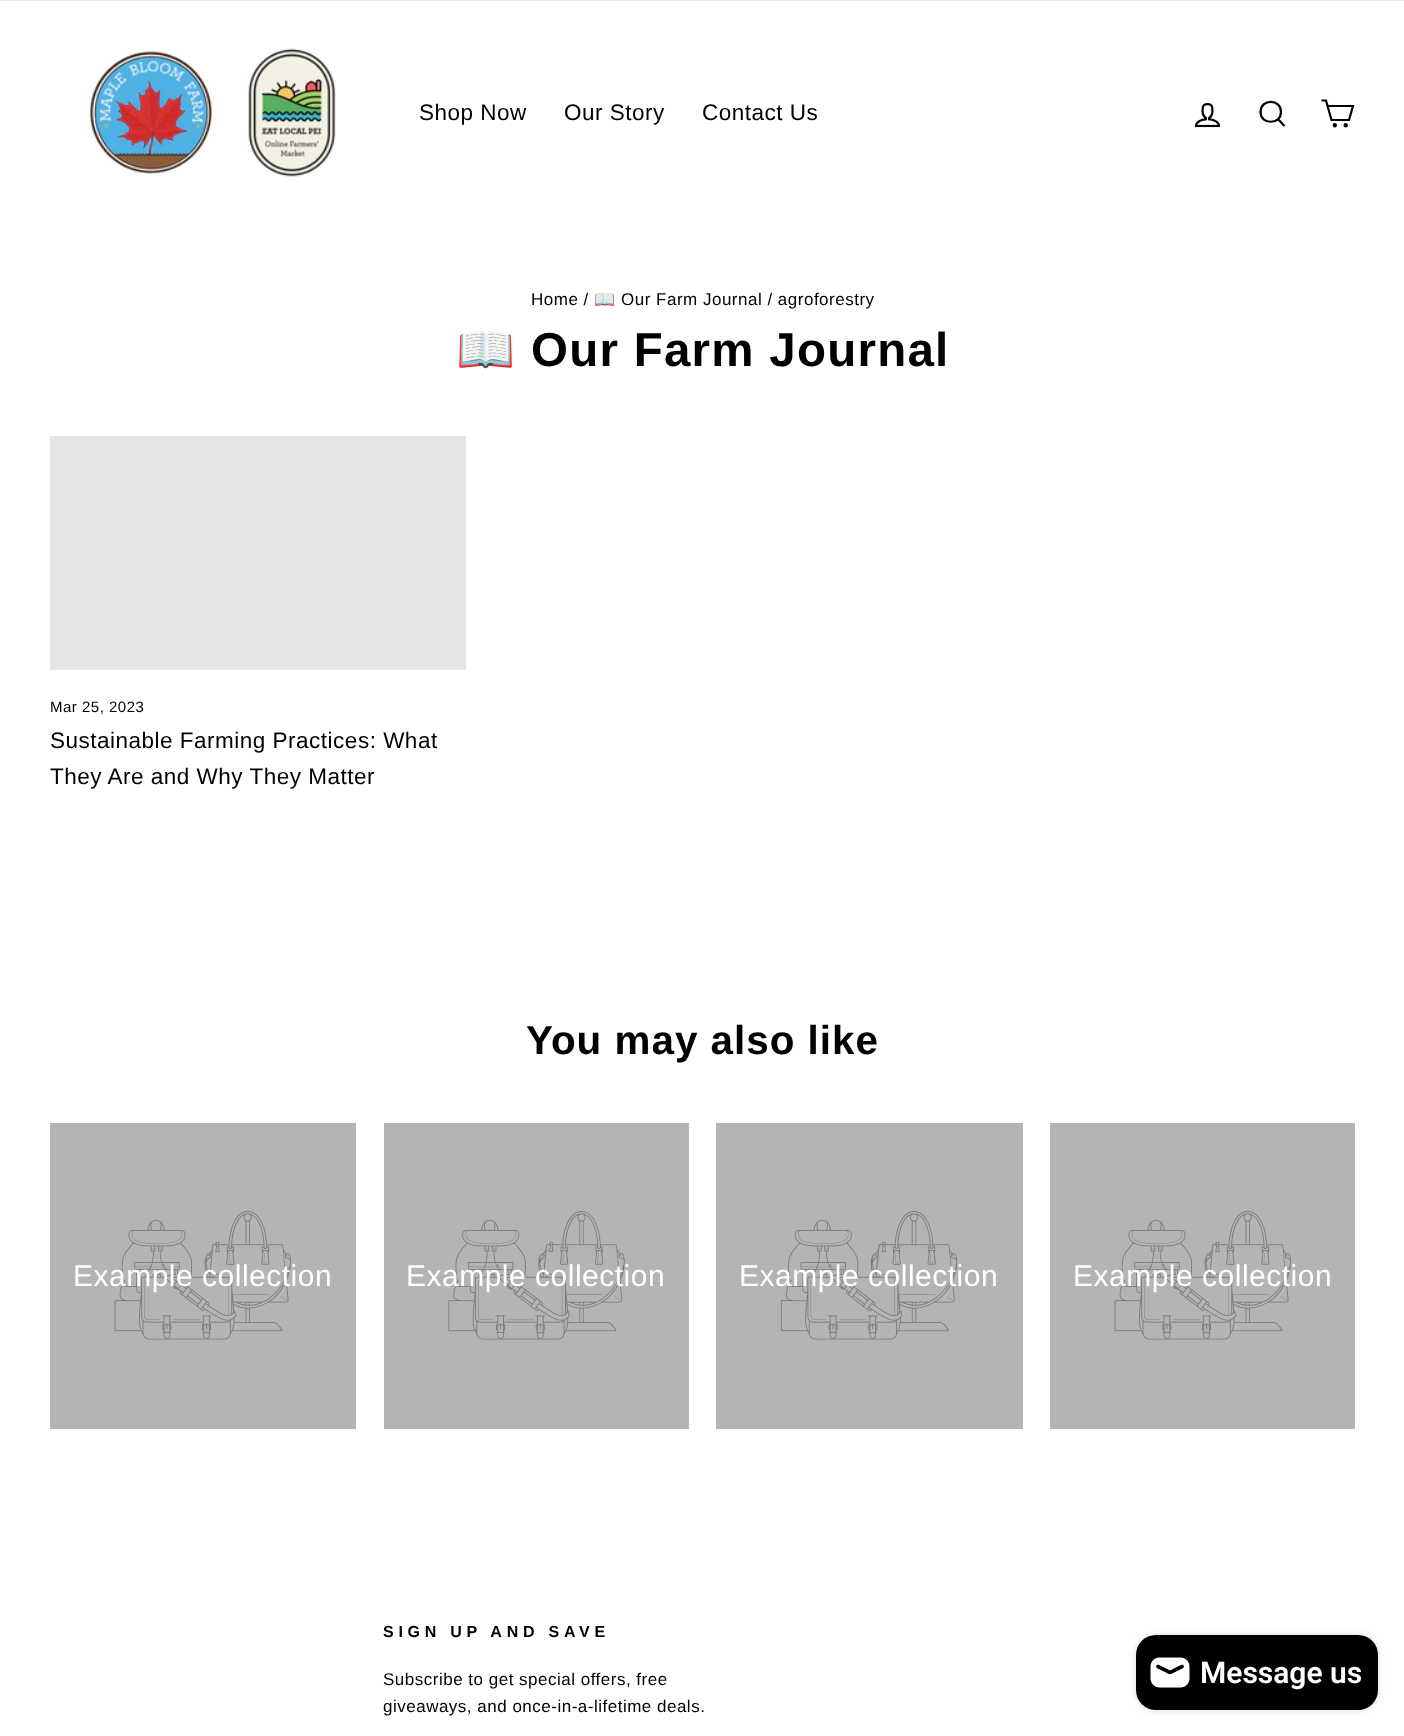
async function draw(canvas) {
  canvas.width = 1404;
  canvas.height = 1736;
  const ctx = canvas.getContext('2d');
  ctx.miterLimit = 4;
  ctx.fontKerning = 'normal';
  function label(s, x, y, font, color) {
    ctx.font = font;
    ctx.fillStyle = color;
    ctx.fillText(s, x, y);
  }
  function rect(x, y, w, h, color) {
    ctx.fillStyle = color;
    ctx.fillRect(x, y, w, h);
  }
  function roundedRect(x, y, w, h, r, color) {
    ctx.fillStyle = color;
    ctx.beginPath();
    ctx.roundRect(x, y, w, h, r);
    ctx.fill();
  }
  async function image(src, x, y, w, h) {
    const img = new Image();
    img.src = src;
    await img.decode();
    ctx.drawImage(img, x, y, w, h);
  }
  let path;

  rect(0, 0, 1404, 1736, '#fff');
  rect(0, 0, 1404, 1, '#e6e6e6');
  await image('assets/img1.png', 89, 48, 247, 129);
  ctx.letterSpacing = '0.5px';
  label('Shop Now', 419, 120, '22.5px Arimo', '#000');
  label('Our Story', 564, 120, '22.5px Arimo', '#000');
  label('Contact Us', 702, 120, '22.5px Arimo', '#000');
  await image('assets/img2.png', 1194, 103, 27, 25);
  path = new Path2D('M1281 112C1281 125 1260.5 125 1260.5 112C1260.5 98.5 1281 98.5 1281 112ZM1284.5 126L1278 119');
  ctx.strokeStyle = '#000';
  ctx.lineWidth = 2.2;
  ctx.stroke(path);
  path = new Path2D('M1327.5 106H1353L1349 120H1331.5L1326 100.5H1321.5');
  ctx.stroke(path);
  ctx.beginPath();
  ctx.arc(1334.8, 125.2, 1.1, 0, 2 * Math.PI);
  ctx.stroke();
  ctx.beginPath();
  ctx.arc(1345.7, 125.2, 1.1, 0, 2 * Math.PI);
  ctx.stroke();
  label('Home /', 531, 305, '17px Arimo', '#000');
  label('📖', 594, 305, '17px Noto Color Emoji', '#000');
  label('Our Farm Journal / agroforestry', 621, 305, '17px Arimo', '#000');
  ctx.letterSpacing = '1.25px';
  label('📖', 456, 366, 'bold 47.5px Noto Color Emoji', '#000');
  label('Our Farm Journal', 531, 366, 'bold 47.5px Arimo', '#000');
  rect(50, 436, 416, 234, '#e5e5e5');
  ctx.letterSpacing = '0.5px';
  label('Mar 25, 2023', 50, 712, '15px Arimo', '#000');
  label('Sustainable Farming Practices: What', 50, 748, '22.5px Arimo', '#000');
  label('They Are and Why They Matter', 50, 784, '22.5px Arimo', '#000');
  ctx.letterSpacing = '1px';
  label('You may also like', 526, 1054, 'bold 40.4px Arimo', '#000');
  rect(50, 1123, 306, 306, '#b4b4b4');
  await image('assets/img3.png', 114, 1211, 177, 129);
  ctx.letterSpacing = '0.5px';
  label('Example collection', 73, 1286, '30px Arimo', '#fff');
  rect(384, 1123, 305, 306, '#b4b4b4');
  await image('assets/img4.png', 448, 1211, 177, 129);
  label('Example collection', 406, 1286, '30px Arimo', '#fff');
  rect(716, 1123, 307, 306, '#b4b4b4');
  await image('assets/img5.png', 780, 1211, 178, 129);
  label('Example collection', 739, 1286, '30px Arimo', '#fff');
  rect(1050, 1123, 305, 306, '#b4b4b4');
  await image('assets/img3.png', 1114, 1211, 177, 129);
  label('Example collection', 1073, 1286, '30px Arimo', '#fff');
  ctx.letterSpacing = '4.75px';
  label('SIGN UP AND SAVE', 383, 1637, 'bold 16px Arimo', '#000');
  ctx.letterSpacing = '0.5px';
  label('Subscribe to get special offers, free', 383, 1685, '17px Arimo', '#000');
  label('giveaways, and once-in-a-lifetime deals.', 383, 1712, '17px Arimo', '#000');
  ctx.fillStyle = '#00000026';
  ctx.filter = 'blur(3px)';
  ctx.beginPath();
  ctx.roundRect(1136, 1635, 242, 75, 20);
  ctx.fill();
  ctx.filter = 'none';
  roundedRect(1136, 1635, 242, 75, 20, '#000');
  await image('assets/img6.png', 1150, 1657, 40, 31);
  ctx.letterSpacing = '0px';
  label('Message us', 1200, 1683, '600 30px Roboto', '#fff');
}

draw(document.querySelector('canvas'));
